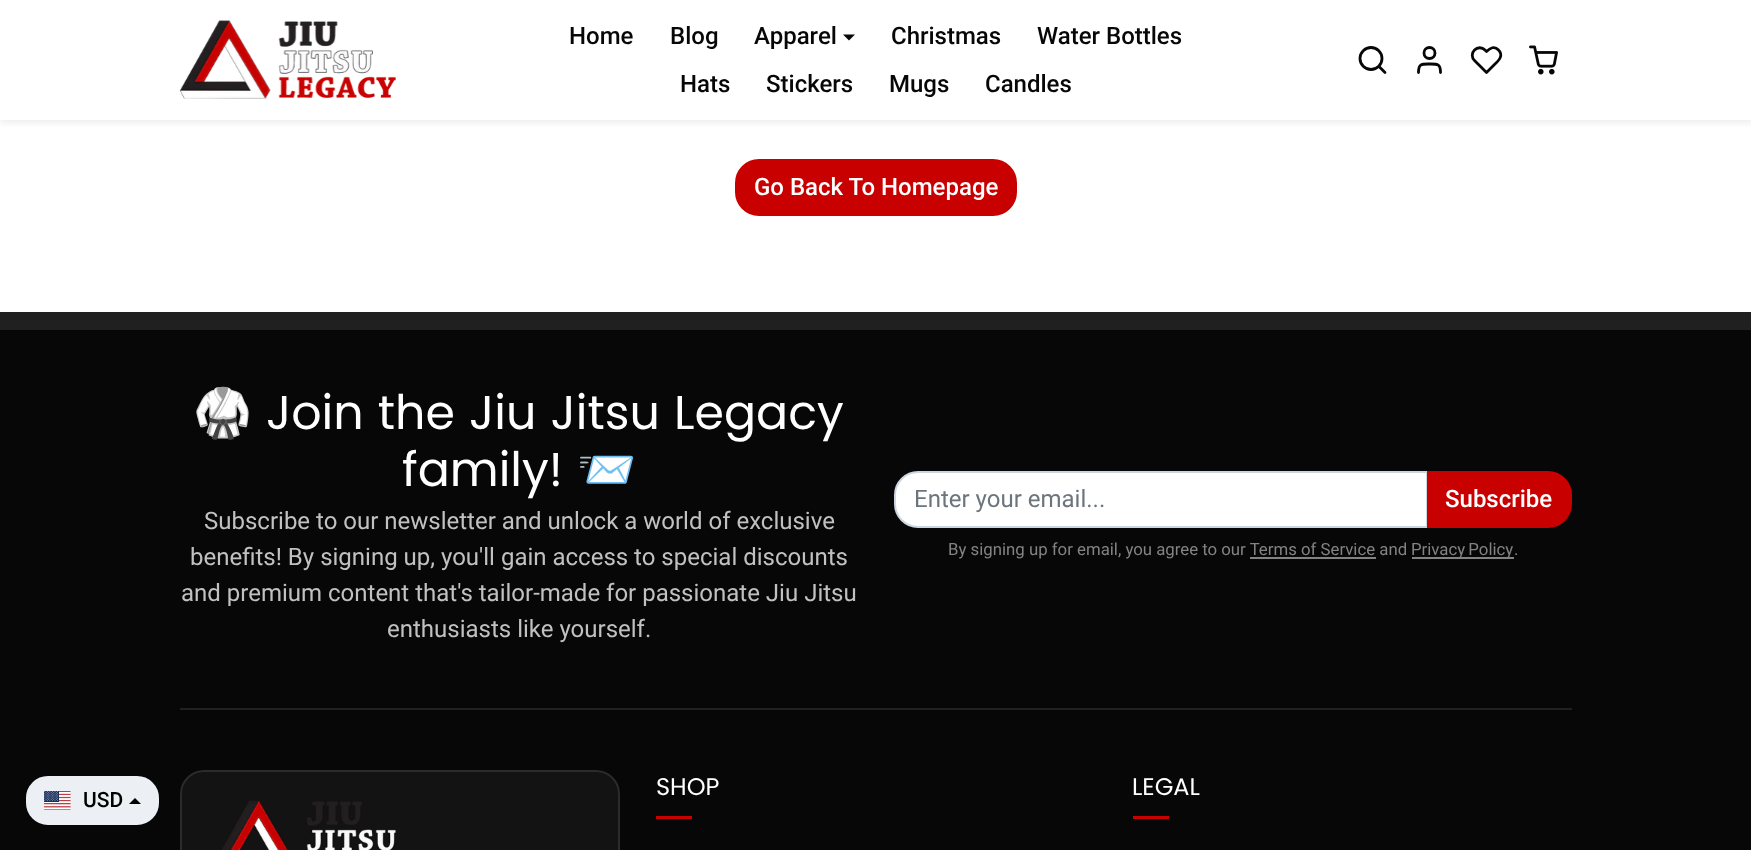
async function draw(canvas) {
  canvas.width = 1751;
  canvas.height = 850;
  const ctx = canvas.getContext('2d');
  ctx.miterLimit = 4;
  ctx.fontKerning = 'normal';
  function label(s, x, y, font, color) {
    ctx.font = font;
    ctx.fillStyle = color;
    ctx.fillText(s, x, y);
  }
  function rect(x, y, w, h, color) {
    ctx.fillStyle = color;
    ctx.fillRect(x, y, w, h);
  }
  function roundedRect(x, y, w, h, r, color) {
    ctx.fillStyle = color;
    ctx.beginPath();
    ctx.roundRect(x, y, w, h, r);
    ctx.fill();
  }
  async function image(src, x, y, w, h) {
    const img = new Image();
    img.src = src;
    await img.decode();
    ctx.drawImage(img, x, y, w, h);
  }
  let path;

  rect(0, 0, 1751, 850, '#fff');
  ctx.fillStyle = '#00000012';
  ctx.filter = 'blur(3px)';
  ctx.beginPath();
  ctx.rect(0, 3, 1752, 120);
  ctx.fill();
  ctx.filter = 'none';
  rect(0, 0, 1751, 120, '#fff');
  await image('assets/img1.png', 180, 20, 216, 79);
  label('Home', 569, 44, '500 24px Roboto', '#070707');
  label('Blog', 670, 44, '500 24px Roboto', '#070707');
  label('Apparel', 754, 44, '500 24px Roboto', '#070707');
  path = new Path2D('M843 34.5H855L849 40.5Z');
  ctx.fill(path);
  label('Christmas', 891, 44, '500 24px Roboto', '#070707');
  label('Water Bottles', 1037, 44, '500 24px Roboto', '#070707');
  label('Hats', 680, 92, '500 24px Roboto', '#070707');
  label('Stickers', 766, 92, '500 24px Roboto', '#070707');
  label('Mugs', 889, 92, '500 24px Roboto', '#070707');
  label('Candles', 985, 92, '500 24px Roboto', '#070707');
  ctx.beginPath();
  ctx.arc(1371, 58.5, 11, 0, 2 * Math.PI);
  ctx.strokeStyle = '#070707';
  ctx.lineWidth = 2.8;
  ctx.stroke();
  path = new Path2D('M1385 72.5L1379 66.5');
  ctx.lineCap = 'round';
  ctx.lineJoin = 'round';
  ctx.stroke(path);
  path = new Path2D('M1440.5 72.5C1440.5 63.5 1437.5 64 1429.5 64C1421.5 64 1418.5 63.5 1418.5 72.5');
  ctx.stroke(path);
  ctx.beginPath();
  ctx.arc(1429.5, 53, 5.5, 0, 2 * Math.PI);
  ctx.stroke();
  path = new Path2D('M1498.5 50C1494.5 45.5 1490 48 1486.5 51.5L1485 50C1482 47 1477.5 47 1474.5 50C1471.5 53 1471.5 57.5 1474.5 60.5L1486.5 72.5L1493.5 65.5C1497.5 61.5 1504.5 56 1498.5 50Z');
  ctx.stroke(path);
  await image('assets/img2.png', 1529, 45, 29, 30);
  ctx.fillStyle = '#c90000';
  ctx.beginPath();
  ctx.roundRect(736, 160, 280, 55, 23);
  ctx.fill();
  ctx.strokeStyle = '#c90000';
  ctx.lineWidth = 2;
  ctx.lineJoin = 'miter';
  ctx.stroke();
  label('Go Back To Homepage', 754, 195, '500 24px Roboto', '#fff');
  rect(0, 312, 1751, 18, '#202020');
  rect(0, 330, 1751, 520, '#070707');
  rect(180, 708, 1392, 2, '#202020');
  label('🥋', 193, 429, '47.5px Noto Color Emoji', '#fff');
  label('Join the Jiu Jitsu Legacy', 266, 429, '47.5px Poppins', '#fff');
  label('family!', 402, 486, '47.5px Poppins', '#fff');
  label('📨', 577, 486, '47.5px Noto Color Emoji', '#fff');
  label('Subscribe to our newsletter and unlock a world of exclusive', 204, 529, '24px Roboto', '#c1c1c1');
  label('benefits! By signing up, you\'ll gain access to special discounts', 190, 565, '24px Roboto', '#c1c1c1');
  label('and premium content that\'s tailor-made for passionate Jiu Jitsu', 181, 601, '24px Roboto', '#c1c1c1');
  label('enthusiasts like yourself.', 387, 637, '24px Roboto', '#c1c1c1');
  ctx.fillStyle = '#fff';
  ctx.beginPath();
  ctx.roundRect(895, 472, 532, 55, [23, 0, 0, 23]);
  ctx.fill();
  ctx.strokeStyle = '#cbd6e3';
  ctx.stroke();
  label('Enter your email...', 914, 507, '24px Roboto', '#6c757d');
  ctx.fillStyle = '#c90000';
  ctx.beginPath();
  ctx.roundRect(1428, 472, 143, 55, [0, 23, 23, 0]);
  ctx.fill();
  ctx.strokeStyle = '#c90000';
  ctx.stroke();
  label('Subscribe', 1445, 507, '500 24px Roboto', '#fff');
  label('By signing up for email, you agree to our Terms of Service and', 948, 555, '16.8px Roboto', '#838383');
  rect(1412, 557, 102, 2, '#838383');
  ctx.wordSpacing = '-1px';
  label('Privacy Policy', 1411, 555, '16.8px Roboto', '#838383');
  ctx.wordSpacing = '0px';
  label('.', 1514, 555, '16.8px Roboto', '#838383');
  rect(1250, 557, 126, 2, '#838383');
  roundedRect(180, 770, 440, 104, 24, '#131313');
  ctx.beginPath();
  ctx.roundRect(181, 771, 438, 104, 23);
  ctx.strokeStyle = '#ffffff1a';
  ctx.stroke();
  await image('assets/img3.png', 222, 800, 174, 50);
  label('SHOP', 656, 795, '24px Poppins', '#fff');
  rect(656, 816, 36, 3, '#c90000');
  label('LEGAL', 1132, 795, '24px Poppins', '#fff');
  rect(1133, 816, 36, 3, '#c90000');
  ctx.fillStyle = '#ecf0f5';
  ctx.beginPath();
  ctx.roundRect(25, 775, 135, 51, 23);
  ctx.fill();
  ctx.strokeStyle = '#070707';
  ctx.stroke();
  await image('assets/img4.png', 44, 791, 27, 19);
  label('USD', 83, 807, '500 21px Roboto', '#000');
  path = new Path2D('M141 804H129L135 798Z');
  ctx.fill(path);
}

draw(document.querySelector('canvas'));
